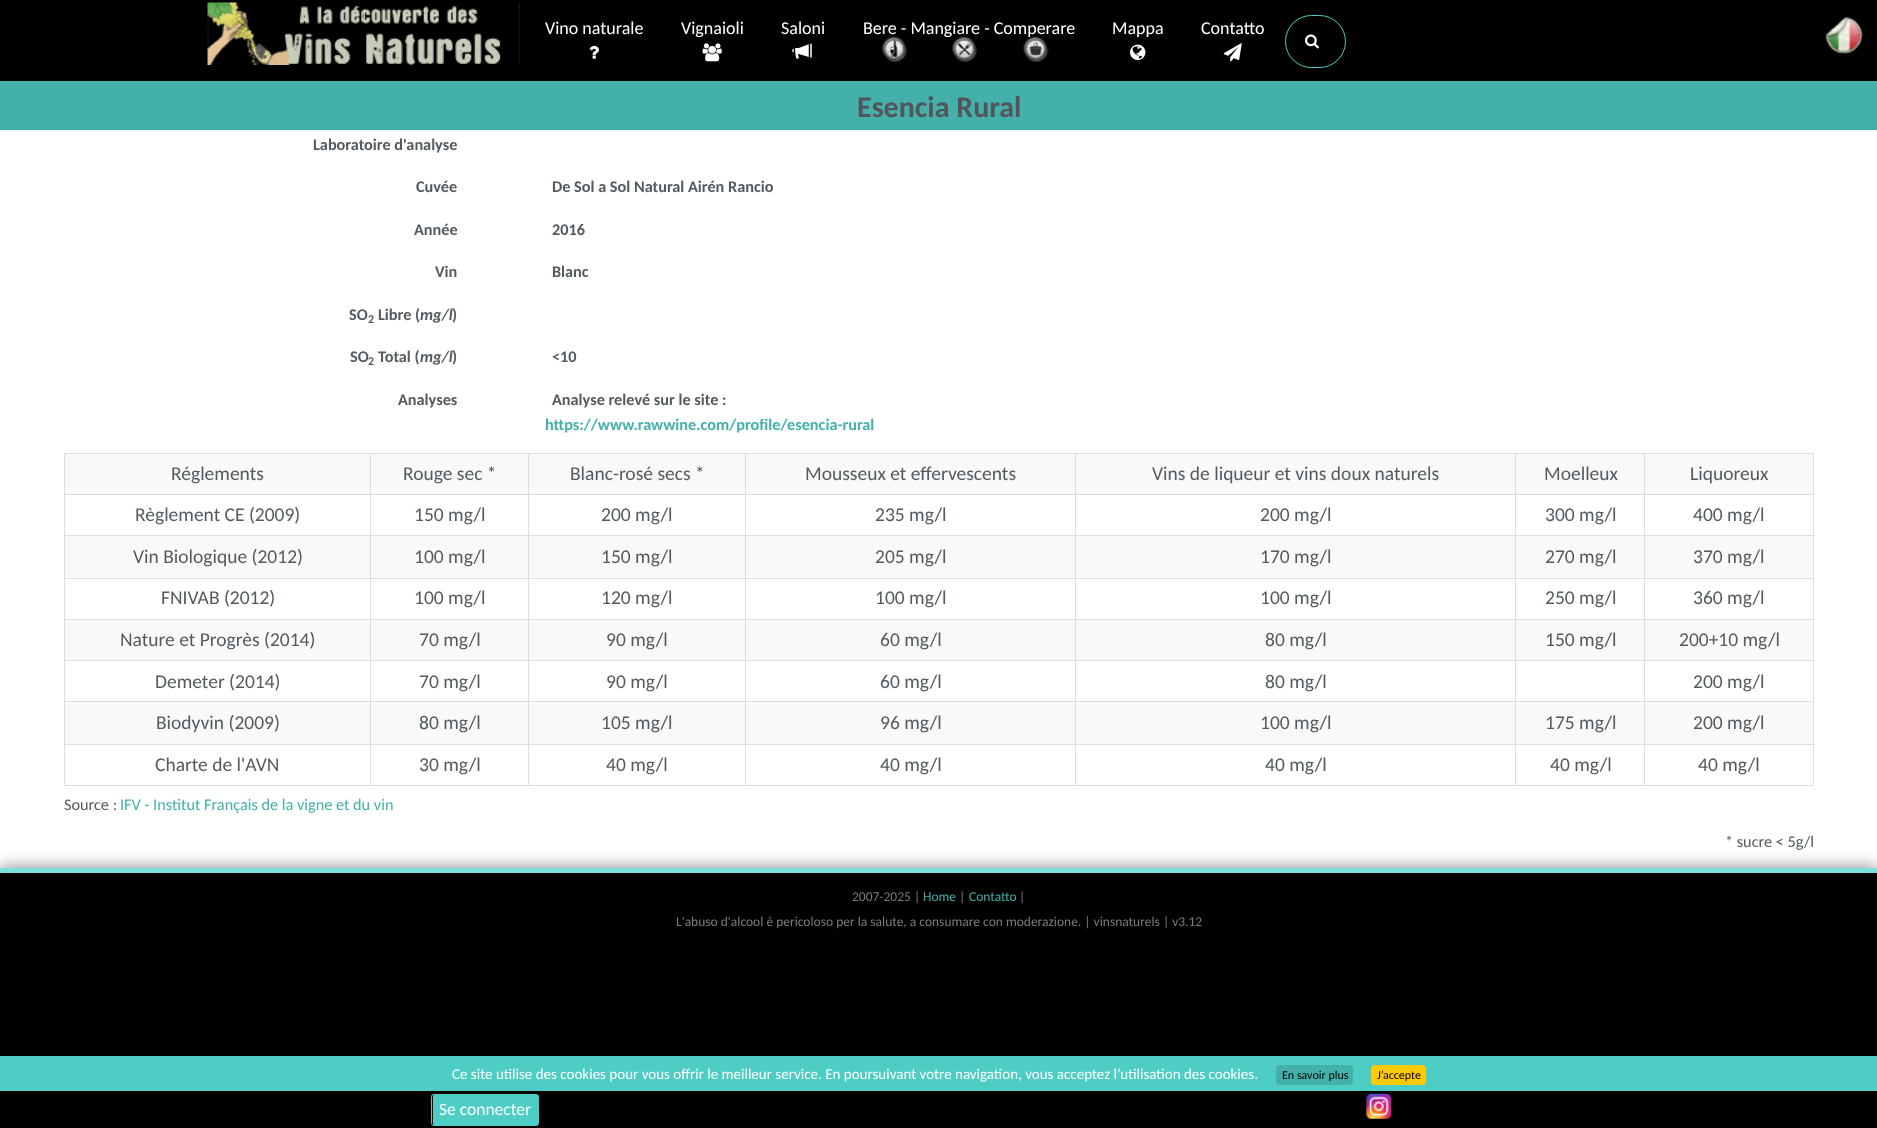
async function draw(canvas) {
  canvas.width = 1877;
  canvas.height = 1128;
  const ctx = canvas.getContext('2d');
  ctx.miterLimit = 4;
  ctx.fontKerning = 'normal';
  function label(s, x, y, font, color) {
    ctx.font = font;
    ctx.fillStyle = color;
    ctx.fillText(s, x, y);
  }
  function rect(x, y, w, h, color) {
    ctx.fillStyle = color;
    ctx.fillRect(x, y, w, h);
  }
  function roundedRect(x, y, w, h, r, color) {
    ctx.fillStyle = color;
    ctx.beginPath();
    ctx.roundRect(x, y, w, h, r);
    ctx.fill();
  }
  async function image(src, x, y, w, h) {
    const img = new Image();
    img.src = src;
    await img.decode();
    ctx.drawImage(img, x, y, w, h);
  }

  rect(0, 0, 1877, 1128, '#000');
  await image('assets/img1.png', 207, 2, 313, 63);
  label('Vino naturale', 545, 34, '18px Carlito', '#fff');
  await image('assets/img2.png', 589, 45, 10, 14);
  label('Vignaioli', 681, 34, '18px Carlito', '#fff');
  await image('assets/img3.png', 702, 43, 20, 19);
  label('Saloni', 781, 34, '18px Carlito', '#fff');
  await image('assets/img4.png', 792, 43, 20, 16);
  label('Bere - Mangiare - Comperare', 863, 34, '18px Carlito', '#fff');
  await image('assets/img5.png', 881, 36, 27, 26);
  await image('assets/img6.png', 951, 36, 27, 26);
  await image('assets/img7.png', 1022, 36, 27, 26);
  label('Mappa', 1112, 34, '18px Carlito', '#fff');
  await image('assets/img8.png', 1130, 44, 16, 16);
  label('Contatto', 1201, 34, '18px Carlito', '#fff');
  await image('assets/img9.png', 1223, 43, 19, 19);
  ctx.beginPath();
  ctx.roundRect(1285.5, 15.5, 60, 52, 26);
  ctx.strokeStyle = '#4ecdc4';
  ctx.stroke();
  await image('assets/img10.png', 1305, 34, 14, 15);
  await image('assets/img11.png', 1825, 16, 38, 39);
  rect(0, 81, 1877, 49, '#43b1a9');
  label('Esencia Rural', 857, 117, 'bold 30px Carlito', '#53555c');
  rect(0, 130, 1877, 738, '#fff');
  label('Laboratoire d\'analyse', 313, 150, 'bold 16.25px Carlito', '#535b60');
  label('Cuvée', 416, 192, 'bold 16.25px Carlito', '#535b60');
  label('Année', 414, 235, 'bold 16.25px Carlito', '#535b60');
  label('Vin', 435, 277, 'bold 16.25px Carlito', '#535b60');
  label('SO', 349, 320, 'bold 16.25px Carlito', '#535b60');
  label('2', 368, 323, 'bold 12px Carlito', '#535b60');
  label('Libre (', 378, 320, 'bold 16.25px Carlito', '#535b60');
  label('mg/l', 420, 320, 'italic bold 16.25px Carlito', '#535b60');
  label(')', 452, 320, 'bold 16.25px Carlito', '#535b60');
  label('SO', 350, 362, 'bold 16.25px Carlito', '#535b60');
  label('2', 368, 365, 'bold 12px Carlito', '#535b60');
  label('Total (', 378, 362, 'bold 16.25px Carlito', '#535b60');
  label('mg/l', 420, 362, 'italic bold 16.25px Carlito', '#535b60');
  label(')', 452, 362, 'bold 16.25px Carlito', '#535b60');
  label('Analyses', 398, 405, 'bold 16.25px Carlito', '#535b60');
  label('De Sol a Sol Natural Airén Rancio', 552, 192, 'bold 16.25px Carlito', '#535b60');
  label('2016', 552, 235, 'bold 16.25px Carlito', '#535b60');
  label('Blanc', 552, 277, 'bold 16.25px Carlito', '#535b60');
  label('<10', 552, 362, 'bold 16.25px Carlito', '#535b60');
  label('Analyse relevé sur le site :', 552, 405, 'bold 16.25px Carlito', '#535b60');
  label('https://www.rawwine.com/profile/esencia-rural', 545, 430, 'bold 16.25px Carlito', '#43b1a9');
  rect(64, 453, 1750, 1, '#ddd');
  rect(1813, 453, 1, 333, '#ddd');
  rect(64, 785, 1750, 1, '#ddd');
  rect(64, 453, 1, 333, '#ddd');
  rect(65, 454, 305, 40, '#f9f9f9');
  label('Réglements', 171, 480, '19.5px Carlito', '#535b60');
  rect(371, 454, 157, 40, '#f9f9f9');
  rect(1644, 494, 170, 1, '#ddd');
  rect(1644, 535, 170, 1, '#ddd');
  rect(1644, 578, 170, 1, '#ddd');
  rect(1644, 619, 170, 1, '#ddd');
  rect(1644, 660, 170, 1, '#ddd');
  rect(1644, 701, 170, 1, '#ddd');
  rect(1644, 744, 170, 1, '#ddd');
  rect(1644, 744, 1, 42, '#ddd');
  rect(1515, 744, 130, 1, '#ddd');
  rect(1644, 701, 1, 44, '#ddd');
  rect(1515, 701, 130, 1, '#ddd');
  rect(1644, 660, 1, 43, '#ddd');
  rect(1515, 660, 130, 1, '#ddd');
  rect(1644, 619, 1, 42, '#ddd');
  rect(1515, 619, 130, 1, '#ddd');
  rect(1644, 578, 1, 42, '#ddd');
  rect(1515, 578, 130, 1, '#ddd');
  rect(1644, 535, 1, 44, '#ddd');
  rect(1515, 535, 130, 1, '#ddd');
  rect(1644, 494, 1, 42, '#ddd');
  rect(1515, 494, 130, 1, '#ddd');
  rect(1515, 744, 1, 42, '#ddd');
  rect(1075, 744, 441, 1, '#ddd');
  rect(1515, 701, 1, 44, '#ddd');
  rect(1075, 701, 441, 1, '#ddd');
  rect(1515, 660, 1, 43, '#ddd');
  rect(1075, 660, 441, 1, '#ddd');
  rect(1515, 619, 1, 42, '#ddd');
  rect(1075, 619, 441, 1, '#ddd');
  rect(1515, 578, 1, 42, '#ddd');
  rect(1075, 578, 441, 1, '#ddd');
  rect(1515, 535, 1, 44, '#ddd');
  rect(1075, 535, 441, 1, '#ddd');
  rect(1515, 494, 1, 42, '#ddd');
  rect(1075, 494, 441, 1, '#ddd');
  rect(1075, 744, 1, 42, '#ddd');
  rect(745, 744, 331, 1, '#ddd');
  rect(1075, 701, 1, 44, '#ddd');
  rect(745, 701, 331, 1, '#ddd');
  rect(1075, 660, 1, 43, '#ddd');
  rect(745, 660, 331, 1, '#ddd');
  rect(1075, 619, 1, 42, '#ddd');
  rect(745, 619, 331, 1, '#ddd');
  rect(1075, 578, 1, 42, '#ddd');
  rect(745, 578, 331, 1, '#ddd');
  rect(1075, 535, 1, 44, '#ddd');
  rect(745, 535, 331, 1, '#ddd');
  rect(1075, 494, 1, 42, '#ddd');
  rect(745, 494, 331, 1, '#ddd');
  rect(745, 744, 1, 42, '#ddd');
  rect(528, 744, 218, 1, '#ddd');
  rect(745, 701, 1, 44, '#ddd');
  rect(528, 701, 218, 1, '#ddd');
  rect(745, 660, 1, 43, '#ddd');
  rect(528, 660, 218, 1, '#ddd');
  rect(745, 619, 1, 42, '#ddd');
  rect(528, 619, 218, 1, '#ddd');
  rect(745, 578, 1, 42, '#ddd');
  rect(528, 578, 218, 1, '#ddd');
  rect(745, 535, 1, 44, '#ddd');
  rect(528, 535, 218, 1, '#ddd');
  rect(745, 494, 1, 42, '#ddd');
  rect(528, 494, 218, 1, '#ddd');
  rect(528, 744, 1, 42, '#ddd');
  rect(370, 744, 159, 1, '#ddd');
  rect(528, 701, 1, 44, '#ddd');
  rect(370, 701, 159, 1, '#ddd');
  rect(528, 660, 1, 43, '#ddd');
  rect(370, 660, 159, 1, '#ddd');
  rect(528, 619, 1, 42, '#ddd');
  rect(370, 619, 159, 1, '#ddd');
  rect(528, 578, 1, 42, '#ddd');
  rect(370, 578, 159, 1, '#ddd');
  rect(528, 535, 1, 44, '#ddd');
  rect(370, 535, 159, 1, '#ddd');
  rect(528, 494, 1, 42, '#ddd');
  rect(370, 494, 159, 1, '#ddd');
  rect(370, 744, 1, 42, '#ddd');
  rect(64, 744, 307, 1, '#ddd');
  rect(370, 701, 1, 44, '#ddd');
  rect(64, 701, 307, 1, '#ddd');
  rect(370, 660, 1, 43, '#ddd');
  rect(64, 660, 307, 1, '#ddd');
  rect(370, 619, 1, 42, '#ddd');
  rect(64, 619, 307, 1, '#ddd');
  rect(370, 578, 1, 42, '#ddd');
  rect(64, 578, 307, 1, '#ddd');
  rect(370, 535, 1, 44, '#ddd');
  rect(64, 535, 307, 1, '#ddd');
  rect(370, 494, 1, 42, '#ddd');
  rect(64, 494, 307, 1, '#ddd');
  rect(370, 453, 1, 42, '#ddd');
  label('Rouge sec *', 403, 480, '19.5px Carlito', '#535b60');
  rect(529, 454, 216, 40, '#f9f9f9');
  rect(528, 453, 1, 42, '#ddd');
  label('Blanc-rosé secs *', 570, 480, '19.5px Carlito', '#535b60');
  rect(746, 454, 329, 40, '#f9f9f9');
  rect(745, 453, 1, 42, '#ddd');
  label('Mousseux et effervescents', 805, 480, '19.5px Carlito', '#535b60');
  rect(1076, 454, 439, 40, '#f9f9f9');
  rect(1075, 453, 1, 42, '#ddd');
  label('Vins de liqueur et vins doux naturels', 1152, 480, '19.5px Carlito', '#535b60');
  rect(1516, 454, 128, 40, '#f9f9f9');
  rect(1515, 453, 1, 42, '#ddd');
  label('Moelleux', 1544, 480, '19.5px Carlito', '#535b60');
  rect(1645, 454, 168, 40, '#f9f9f9');
  rect(1644, 453, 1, 42, '#ddd');
  label('Liquoreux', 1690, 480, '19.5px Carlito', '#535b60');
  label('Règlement CE (2009)', 135, 521, '19.5px Carlito', '#535b60');
  label('150 mg/l', 414, 521, '19.5px Carlito', '#535b60');
  label('200 mg/l', 601, 521, '19.5px Carlito', '#535b60');
  label('235 mg/l', 875, 521, '19.5px Carlito', '#535b60');
  label('200 mg/l', 1260, 521, '19.5px Carlito', '#535b60');
  label('300 mg/l', 1545, 521, '19.5px Carlito', '#535b60');
  label('400 mg/l', 1693, 521, '19.5px Carlito', '#535b60');
  rect(65, 536, 305, 42, '#f9f9f9');
  label('Vin Biologique (2012)', 133, 563, '19.5px Carlito', '#535b60');
  rect(371, 536, 157, 42, '#f9f9f9');
  label('100 mg/l', 414, 563, '19.5px Carlito', '#535b60');
  rect(529, 536, 216, 42, '#f9f9f9');
  label('150 mg/l', 601, 563, '19.5px Carlito', '#535b60');
  rect(746, 536, 329, 42, '#f9f9f9');
  label('205 mg/l', 875, 563, '19.5px Carlito', '#535b60');
  rect(1076, 536, 439, 42, '#f9f9f9');
  label('170 mg/l', 1260, 563, '19.5px Carlito', '#535b60');
  rect(1516, 536, 128, 42, '#f9f9f9');
  label('270 mg/l', 1545, 563, '19.5px Carlito', '#535b60');
  rect(1645, 536, 168, 42, '#f9f9f9');
  label('370 mg/l', 1693, 563, '19.5px Carlito', '#535b60');
  label('FNIVAB (2012)', 161, 604, '19.5px Carlito', '#535b60');
  label('100 mg/l', 414, 604, '19.5px Carlito', '#535b60');
  label('120 mg/l', 601, 604, '19.5px Carlito', '#535b60');
  label('100 mg/l', 875, 604, '19.5px Carlito', '#535b60');
  label('100 mg/l', 1260, 604, '19.5px Carlito', '#535b60');
  label('250 mg/l', 1545, 604, '19.5px Carlito', '#535b60');
  label('360 mg/l', 1693, 604, '19.5px Carlito', '#535b60');
  rect(65, 620, 305, 40, '#f9f9f9');
  label('Nature et Progrès (2014)', 120, 646, '19.5px Carlito', '#535b60');
  rect(371, 620, 157, 40, '#f9f9f9');
  label('70 mg/l', 419, 646, '19.5px Carlito', '#535b60');
  rect(529, 620, 216, 40, '#f9f9f9');
  label('90 mg/l', 606, 646, '19.5px Carlito', '#535b60');
  rect(746, 620, 329, 40, '#f9f9f9');
  label('60 mg/l', 880, 646, '19.5px Carlito', '#535b60');
  rect(1076, 620, 439, 40, '#f9f9f9');
  label('80 mg/l', 1265, 646, '19.5px Carlito', '#535b60');
  rect(1516, 620, 128, 40, '#f9f9f9');
  label('150 mg/l', 1545, 646, '19.5px Carlito', '#535b60');
  rect(1645, 620, 168, 40, '#f9f9f9');
  label('200+10 mg/l', 1679, 646, '19.5px Carlito', '#535b60');
  label('Demeter (2014)', 155, 688, '19.5px Carlito', '#535b60');
  label('70 mg/l', 419, 688, '19.5px Carlito', '#535b60');
  label('90 mg/l', 606, 688, '19.5px Carlito', '#535b60');
  label('60 mg/l', 880, 688, '19.5px Carlito', '#535b60');
  label('80 mg/l', 1265, 688, '19.5px Carlito', '#535b60');
  label('200 mg/l', 1693, 688, '19.5px Carlito', '#535b60');
  rect(65, 703, 305, 41, '#f9f9f9');
  label('Biodyvin (2009)', 156, 729, '19.5px Carlito', '#535b60');
  rect(371, 703, 157, 41, '#f9f9f9');
  label('80 mg/l', 419, 729, '19.5px Carlito', '#535b60');
  rect(529, 703, 216, 41, '#f9f9f9');
  label('105 mg/l', 601, 729, '19.5px Carlito', '#535b60');
  rect(746, 703, 329, 41, '#f9f9f9');
  label('96 mg/l', 880, 729, '19.5px Carlito', '#535b60');
  rect(1076, 703, 439, 41, '#f9f9f9');
  label('100 mg/l', 1260, 729, '19.5px Carlito', '#535b60');
  rect(1516, 703, 128, 41, '#f9f9f9');
  label('175 mg/l', 1545, 729, '19.5px Carlito', '#535b60');
  rect(1645, 703, 168, 41, '#f9f9f9');
  label('200 mg/l', 1693, 729, '19.5px Carlito', '#535b60');
  label('Charte de l\'AVN', 155, 771, '19.5px Carlito', '#535b60');
  label('30 mg/l', 419, 771, '19.5px Carlito', '#535b60');
  label('40 mg/l', 606, 771, '19.5px Carlito', '#535b60');
  label('40 mg/l', 880, 771, '19.5px Carlito', '#535b60');
  label('40 mg/l', 1265, 771, '19.5px Carlito', '#535b60');
  label('40 mg/l', 1550, 771, '19.5px Carlito', '#535b60');
  label('40 mg/l', 1698, 771, '19.5px Carlito', '#535b60');
  label('Source :', 64, 810, '16.25px Carlito', '#535b60');
  label('IFV - Institut Français de la vigne et du vin', 120, 810, '16.25px Carlito', '#43b1a9');
  ctx.fillStyle = '#00000066';
  ctx.filter = 'blur(7.5px)';
  ctx.beginPath();
  ctx.rect(0, 866, 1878, 118);
  ctx.fill();
  ctx.filter = 'none';
  label('* sucre < 5g/l', 1725, 847, '16.25px Carlito', '#535b60');
  rect(0, 868, 1877, 5, '#7ce1da');
  label('2007-2025 |', 852, 901, '13.5px Carlito', '#7c7c7c');
  label('Home', 923, 901, '13.5px Carlito', '#43b1a9');
  label('|', 959, 901, '13.5px Carlito', '#7c7c7c');
  label('Contatto', 969, 901, '13.5px Carlito', '#43b1a9');
  label('|', 1019, 901, '13.5px Carlito', '#7c7c7c');
  label('L\'abuso d\'alcool è pericoloso per la salute, a consumare con moderazione. | vinsnaturels | v3.12', 676, 926, '13.5px Carlito', '#7c7c7c');
  roundedRect(433, 1095, 105, 30, 1, '#4ecdc4');
  ctx.beginPath();
  ctx.roundRect(431.5, 1094.5, 107, 31, 2);
  ctx.stroke();
  label('Se connecter', 439, 1115, '17.5px Carlito', '#fff');
  await image('assets/img12.png', 1366, 1093, 26, 26);
  rect(0, 1056, 1877, 35, '#4ecdc4');
  label('Ce site utilise des cookies pour vous offrir le meilleur service. En poursuivant votre navigation, vous acceptez l’utilisation des cookies.', 452, 1079, '15px Carlito', '#fff');
  roundedRect(1276, 1065, 77, 20, 4, '#43b1a9');
  label('En savoir plus', 1282, 1079, '12px Carlito', '#000');
  roundedRect(1371, 1065, 55, 20, 4, '#ffcb05');
  label('J’accepte', 1377, 1079, '12px Carlito', '#000');
}

draw(document.querySelector('canvas'));
